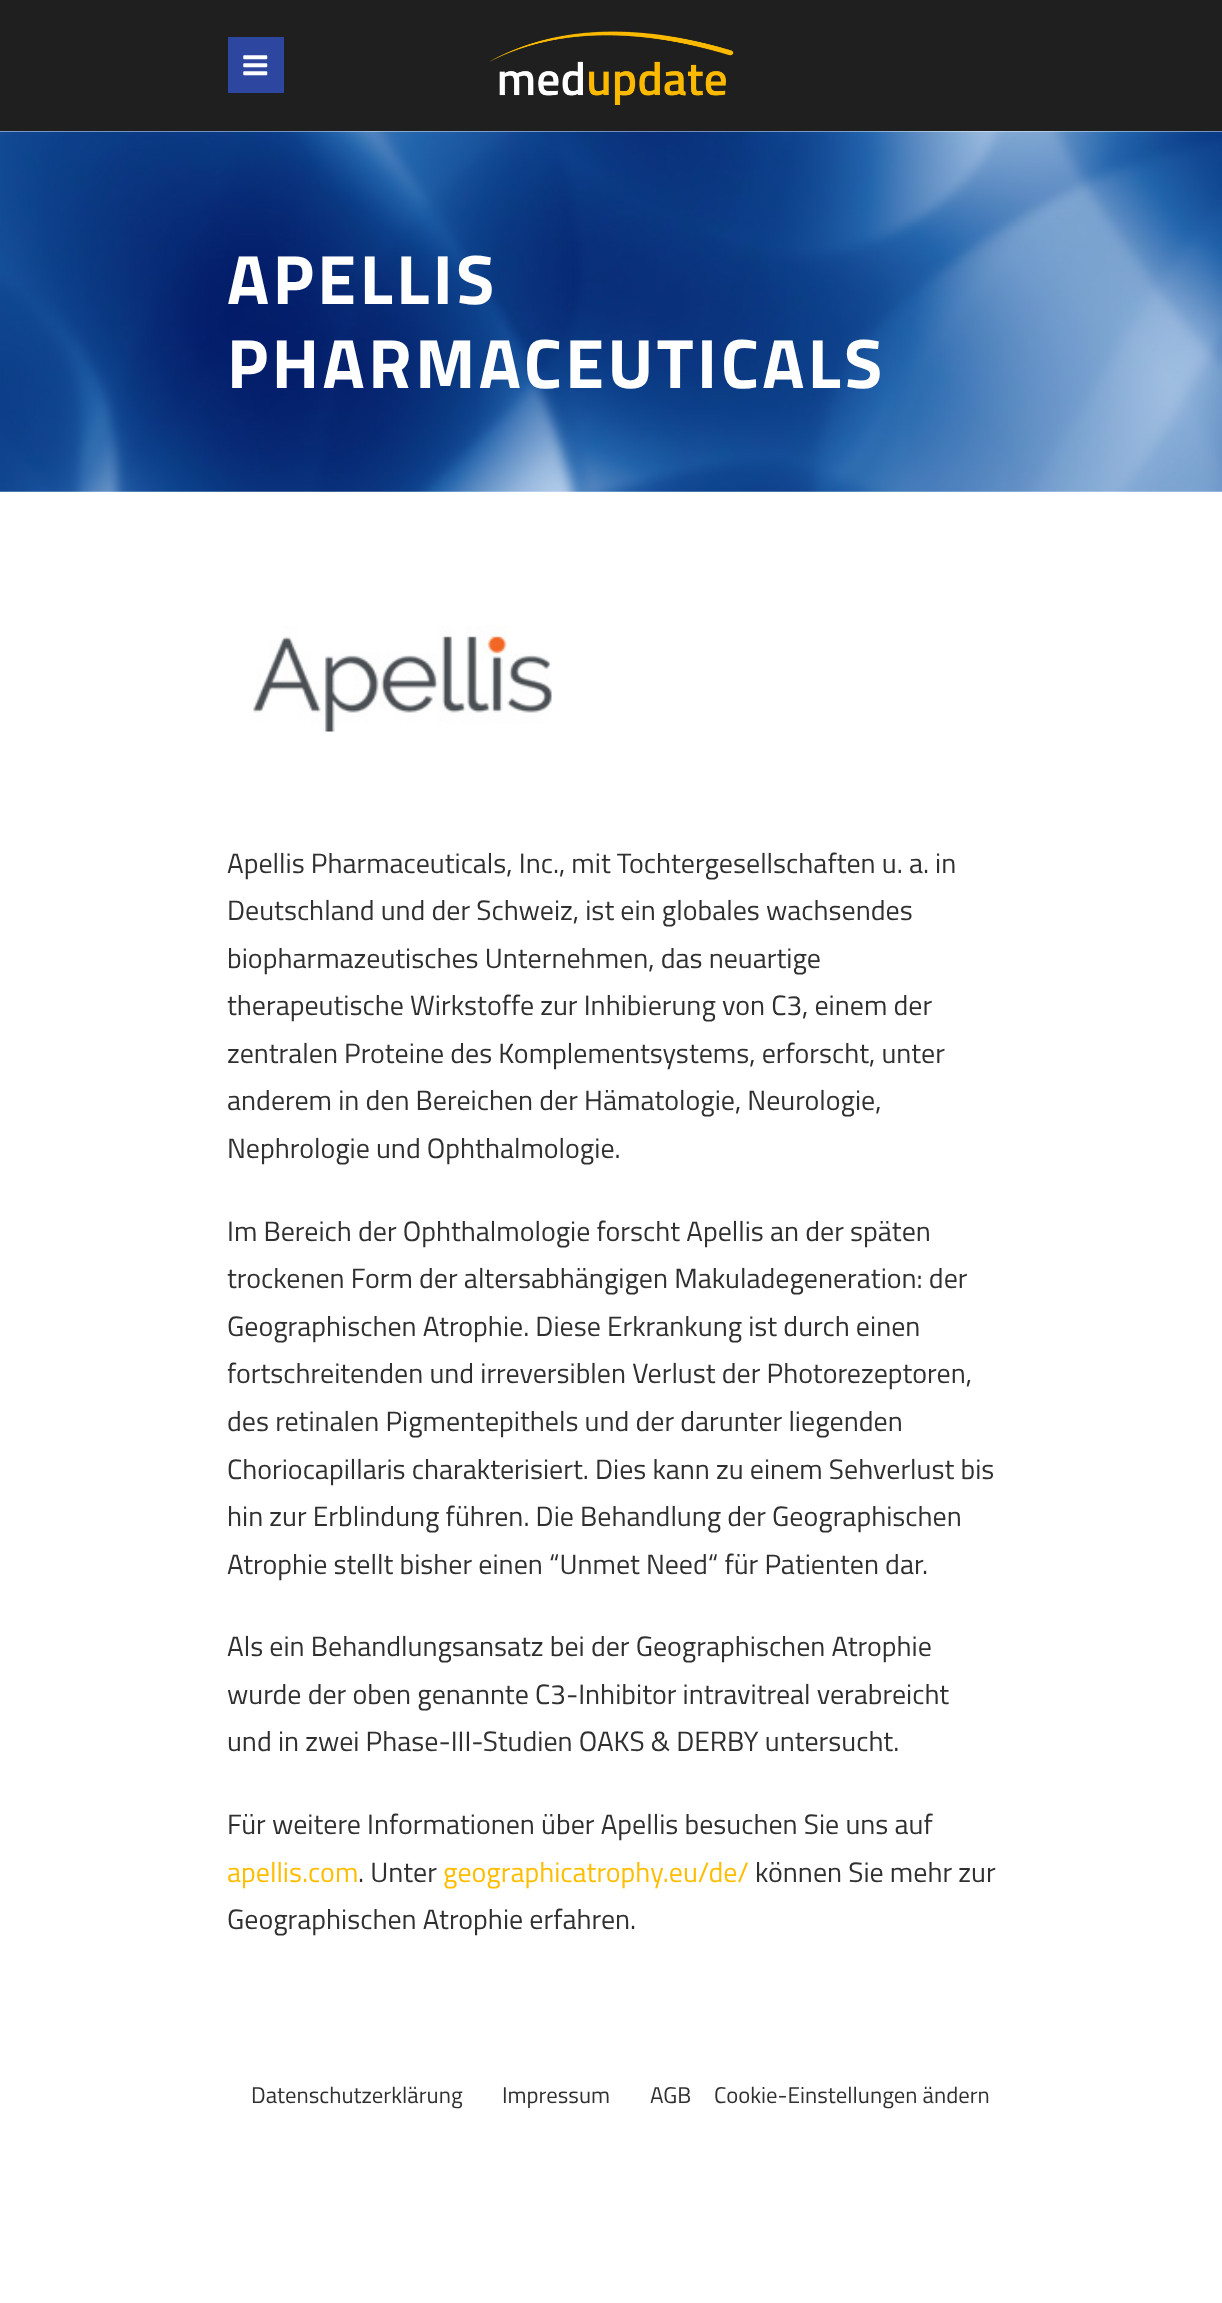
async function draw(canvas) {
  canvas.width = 1222;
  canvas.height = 2303;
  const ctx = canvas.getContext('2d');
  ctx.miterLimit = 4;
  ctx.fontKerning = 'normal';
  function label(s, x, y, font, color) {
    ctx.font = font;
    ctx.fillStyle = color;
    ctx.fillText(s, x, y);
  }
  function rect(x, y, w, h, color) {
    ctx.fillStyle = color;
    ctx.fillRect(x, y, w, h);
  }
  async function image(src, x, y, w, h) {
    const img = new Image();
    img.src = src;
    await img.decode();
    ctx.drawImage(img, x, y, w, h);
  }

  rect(0, 0, 1222, 2303, '#fff');
  rect(0, 0, 1222, 131, '#1f1f1f');
  rect(228, 37, 56, 56, '#2d47a1');
  await image('assets/img1.png', 243, 55, 25, 21);
  await image('assets/img2.png', 490, 31, 244, 74);
  await image('assets/img3.png', 0, 131, 1222, 361);
  ctx.letterSpacing = '3.5px';
  label('APELLIS', 227, 304, 'bold 70px Titillium Web', '#fff');
  label('PHARMACEUTICALS', 227, 388, 'bold 70px Titillium Web', '#fff');
  await image('assets/img4.png', 251, 625, 301, 108);
  ctx.letterSpacing = '0px';
  label('Apellis Pharmaceuticals, Inc., mit Tochtergesellschaften u. a. in', 227, 873, '28px Titillium Web', '#303030');
  label('Deutschland und der Schweiz, ist ein globales wachsendes', 227, 920, '28px Titillium Web', '#303030');
  label('biopharmazeutisches Unternehmen, das neuartige', 227, 968, '28px Titillium Web', '#303030');
  label('therapeutische Wirkstoffe zur Inhibierung von C3, einem der', 227, 1015, '28px Titillium Web', '#303030');
  label('zentralen Proteine des Komplementsystems, erforscht, unter', 227, 1063, '28px Titillium Web', '#303030');
  label('anderem in den Bereichen der Hämatologie, Neurologie,', 227, 1110, '28px Titillium Web', '#303030');
  label('Nephrologie und Ophthalmologie.', 227, 1158, '28px Titillium Web', '#303030');
  label('Im Bereich der Ophthalmologie forscht Apellis an der späten', 227, 1241, '28px Titillium Web', '#303030');
  label('trockenen Form der altersabhängigen Makuladegeneration: der', 227, 1288, '28px Titillium Web', '#303030');
  label('Geographischen Atrophie. Diese Erkrankung ist durch einen', 227, 1336, '28px Titillium Web', '#303030');
  label('fortschreitenden und irreversiblen Verlust der Photorezeptoren,', 227, 1383, '28px Titillium Web', '#303030');
  label('des retinalen Pigmentepithels und der darunter liegenden', 227, 1431, '28px Titillium Web', '#303030');
  label('Choriocapillaris charakterisiert. Dies kann zu einem Sehverlust bis', 227, 1479, '28px Titillium Web', '#303030');
  label('hin zur Erblindung führen. Die Behandlung der Geographischen', 227, 1526, '28px Titillium Web', '#303030');
  label('Atrophie stellt bisher einen “Unmet Need“ für Patienten dar.', 227, 1574, '28px Titillium Web', '#303030');
  label('Als ein Behandlungsansatz bei der Geographischen Atrophie', 227, 1656, '28px Titillium Web', '#303030');
  label('wurde der oben genannte C3-Inhibitor intravitreal verabreicht', 227, 1704, '28px Titillium Web', '#303030');
  label('und in zwei Phase-III-Studien OAKS & DERBY untersucht.', 227, 1751, '28px Titillium Web', '#303030');
  label('Für weitere Informationen über Apellis besuchen Sie uns auf', 227, 1834, '28px Titillium Web', '#303030');
  label('apellis.com', 227, 1882, '28px Titillium Web', '#ffbd00');
  label('. Unter', 358, 1882, '28px Titillium Web', '#303030');
  label('geographicatrophy.eu/de/', 443, 1882, '28px Titillium Web', '#ffbd00');
  label('können Sie mehr zur', 755, 1882, '28px Titillium Web', '#303030');
  label('Geographischen Atrophie erfahren.', 227, 1929, '28px Titillium Web', '#303030');
  label('Datenschutzerklärung', 251, 2103, '22.75px Titillium Web', '#303030');
  label('Impressum', 502, 2103, '22.75px Titillium Web', '#303030');
  label('AGB', 650, 2103, '22.75px Titillium Web', '#303030');
  label('Cookie-Einstellungen ändern', 714, 2103, '22.75px Titillium Web', '#303030');
}

draw(document.querySelector('canvas'));
